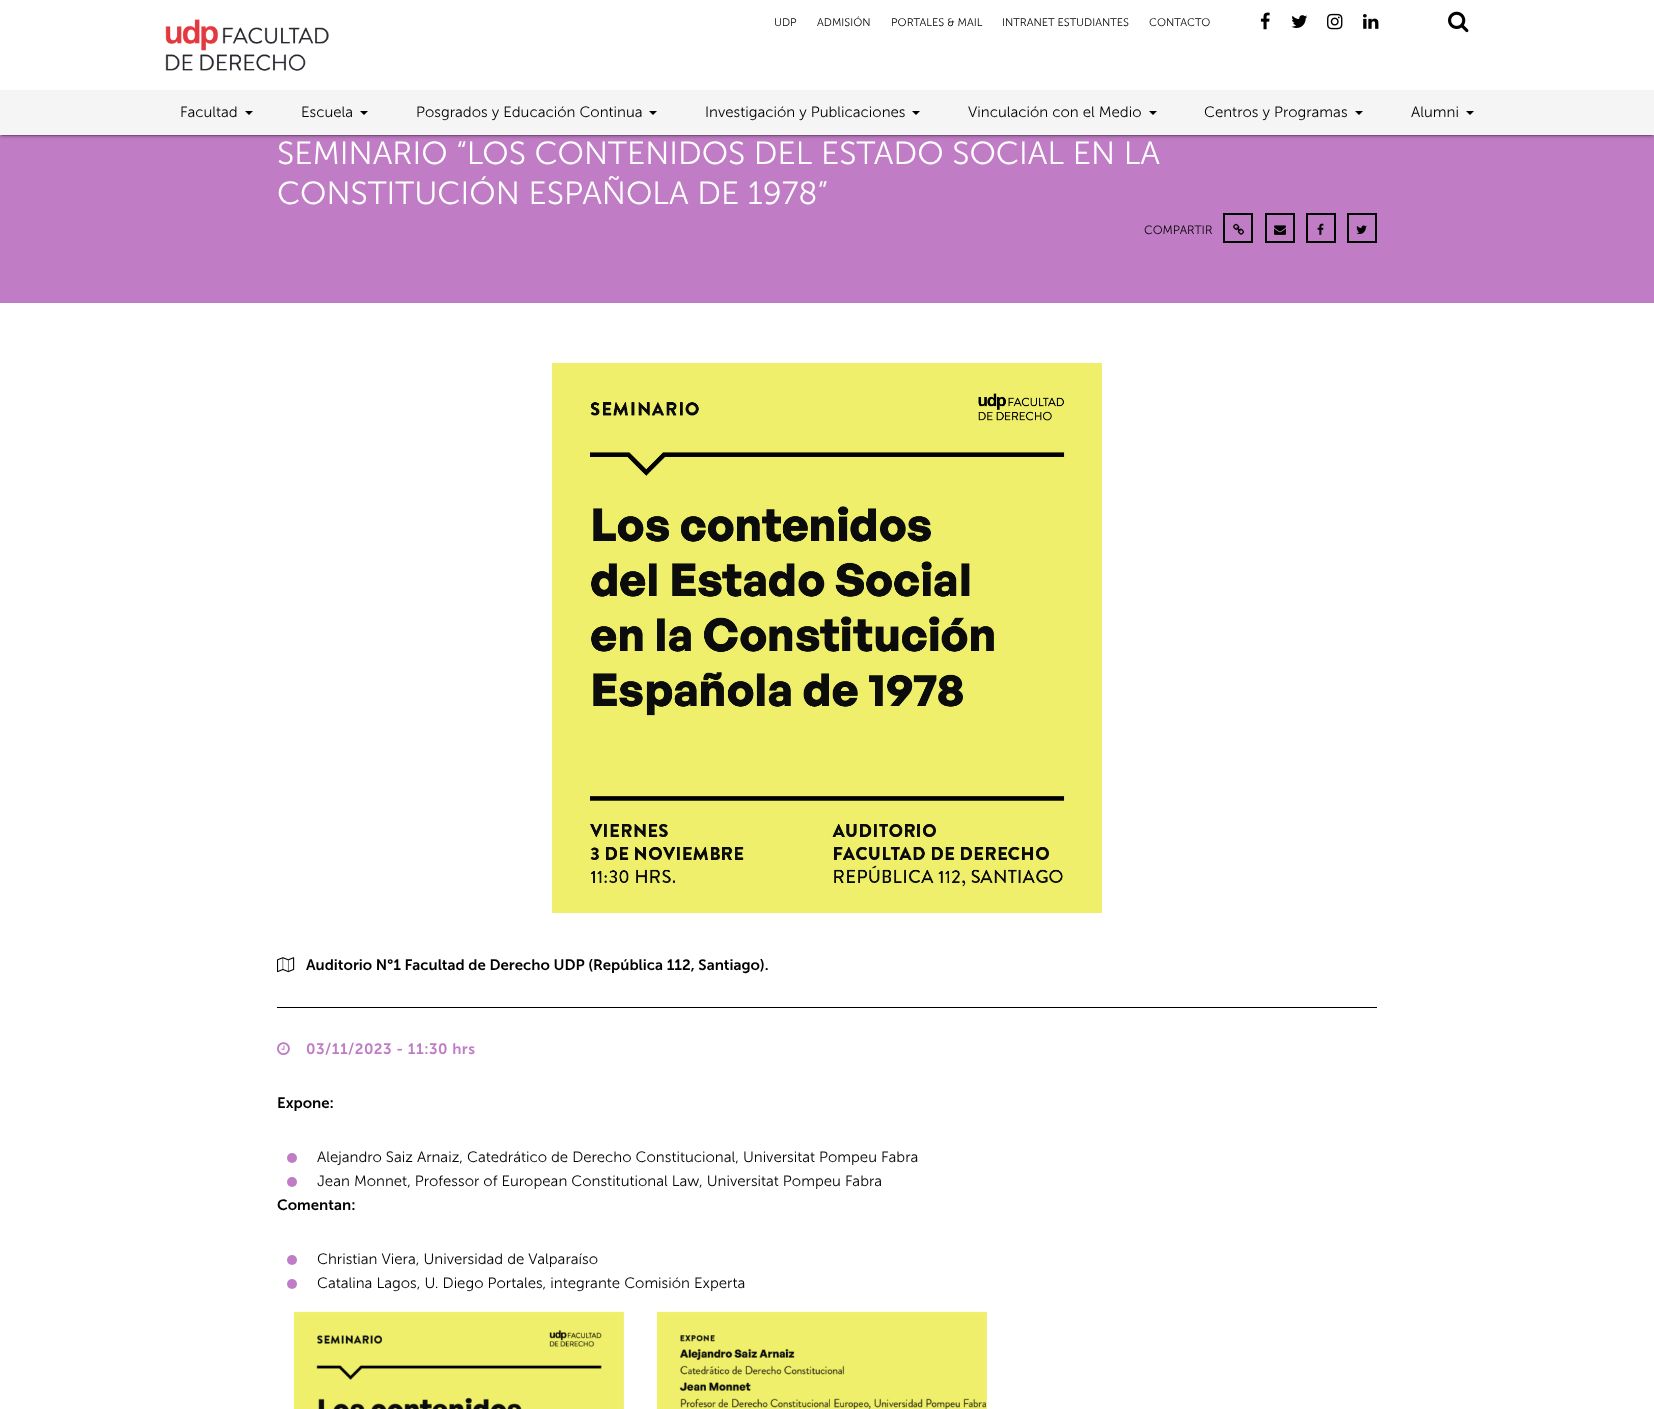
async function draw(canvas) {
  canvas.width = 1654;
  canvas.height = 1409;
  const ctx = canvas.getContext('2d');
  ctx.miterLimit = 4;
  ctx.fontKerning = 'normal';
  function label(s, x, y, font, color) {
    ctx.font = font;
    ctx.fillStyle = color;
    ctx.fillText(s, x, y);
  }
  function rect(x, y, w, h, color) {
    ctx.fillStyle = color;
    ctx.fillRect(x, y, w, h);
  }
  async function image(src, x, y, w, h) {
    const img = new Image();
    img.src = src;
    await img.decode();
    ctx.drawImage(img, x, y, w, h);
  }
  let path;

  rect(0, 0, 1654, 1409, '#fff');
  rect(0, 135, 1654, 168, '#c07dc5');
  ctx.fillStyle = '#00000033';
  ctx.filter = 'blur(0.5px)';
  ctx.beginPath();
  ctx.rect(2, 5, 1650, 131);
  ctx.fill();
  ctx.filter = 'none';
  ctx.fillStyle = '#0000001f';
  ctx.filter = 'blur(2.5px)';
  ctx.beginPath();
  ctx.rect(0, 1, 1654, 135);
  ctx.fill();
  ctx.filter = 'none';
  ctx.fillStyle = '#00000024';
  ctx.filter = 'blur(1px)';
  ctx.beginPath();
  ctx.rect(0, 2, 1654, 135);
  ctx.fill();
  ctx.filter = 'none';
  rect(0, 0, 1654, 90, '#fff');
  await image('assets/img1.png', 165, 19, 164, 52);
  label('UDP', 774, 26, '300 11px "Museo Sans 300"', '#000');
  label('ADMISIÓN', 817, 26, '300 11px "Museo Sans 300"', '#000');
  label('PORTALES & MAIL', 891, 26, '300 11px "Museo Sans 300"', '#000');
  label('INTRANET ESTUDIANTES', 1002, 26, '300 11px "Museo Sans 300"', '#000');
  label('CONTACTO', 1149, 26, '300 11px "Museo Sans 300"', '#000');
  await image('assets/img2.png', 1260, 12, 10, 18);
  await image('assets/img3.png', 1291, 15, 17, 13);
  await image('assets/img4.png', 1327, 13, 16, 17);
  await image('assets/img5.png', 1363, 14, 16, 15);
  await image('assets/img6.png', 1448, 11, 21, 22);
  rect(0, 90, 1654, 45, '#f5f5f5');
  label('Facultad', 180, 117, '300 15px "Museo Sans 300"', '#000');
  path = new Path2D('M245 111H253L249 115Z');
  ctx.fill(path);
  label('Escuela', 301, 117, '300 15px "Museo Sans 300"', '#000');
  path = new Path2D('M360 111H368L364 115Z');
  ctx.fill(path);
  label('Posgrados y Educación Continua', 416, 117, '300 15px "Museo Sans 300"', '#000');
  path = new Path2D('M649 111H657L653 115Z');
  ctx.fill(path);
  label('Investigación y Publicaciones', 705, 117, '300 15px "Museo Sans 300"', '#000');
  path = new Path2D('M912 111H920L916 115Z');
  ctx.fill(path);
  label('Vinculación con el Medio', 968, 117, '300 15px "Museo Sans 300"', '#000');
  path = new Path2D('M1149 111H1157L1153 115Z');
  ctx.fill(path);
  label('Centros y Programas', 1204, 117, '300 15px "Museo Sans 300"', '#000');
  path = new Path2D('M1355 111H1363L1359 115Z');
  ctx.fill(path);
  label('Alumni', 1411, 117, '300 15px "Museo Sans 300"', '#000');
  path = new Path2D('M1466 111H1474L1470 115Z');
  ctx.fill(path);
  label('SEMINARIO “LOS CONTENIDOS DEL ESTADO SOCIAL EN LA', 277, 164, '300 32px "Museo Sans 300"', '#fff');
  label('CONSTITUCIÓN ESPAÑOLA DE 1978”', 277, 204, '300 32px "Museo Sans 300"', '#fff');
  label('COMPARTIR', 1144, 234, '300 12px "Museo Sans 300"', '#000');
  ctx.strokeStyle = '#000';
  ctx.lineWidth = 2;
  ctx.strokeRect(1224, 214, 28, 28);
  await image('assets/img7.png', 1233, 223, 11, 12);
  ctx.strokeRect(1266, 214, 28, 28);
  await image('assets/img8.png', 1274, 225, 12, 10);
  ctx.strokeRect(1307, 214, 28, 28);
  await image('assets/img9.png', 1317, 223, 7, 12);
  ctx.strokeRect(1348, 214, 28, 28);
  await image('assets/img10.png', 1356, 225, 11, 9);
  await image('assets/img11.png', 552, 363, 550, 550);
  await image('assets/img12.png', 277, 957, 18, 16);
  label('Auditorio N°1 Facultad de Derecho UDP (República 112, Santiago).', 306, 970, '600 15px "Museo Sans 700"', '#000');
  rect(277, 1007, 1100, 1, '#000');
  await image('assets/img13.png', 277, 1042, 13, 14);
  ctx.letterSpacing = '0.5px';
  label('03/11/2023 - 11:30 hrs', 306, 1054, '600 15px "Museo Sans 700"', '#c07dc5');
  ctx.letterSpacing = '0px';
  label('Expone:', 277, 1108, '600 15px "Museo Sans 700"', '#000');
  ctx.fillStyle = '#c07dc5';
  ctx.beginPath();
  ctx.arc(292, 1158, 5, 0, 2 * Math.PI);
  ctx.fill();
  label('Alejandro Saiz Arnaiz, Catedrático de Derecho Constitucional, Universitat Pompeu Fabra', 317, 1162, '300 15px "Museo Sans 300"', '#000');
  ctx.fillStyle = '#c07dc5';
  ctx.beginPath();
  ctx.arc(292, 1182, 5, 0, 2 * Math.PI);
  ctx.fill();
  label('Jean Monnet, Professor of European Constitutional Law, Universitat Pompeu Fabra', 317, 1186, '300 15px "Museo Sans 300"', '#000');
  label('Comentan:', 277, 1210, '600 15px "Museo Sans 700"', '#000');
  ctx.fillStyle = '#c07dc5';
  ctx.beginPath();
  ctx.arc(292, 1260, 5, 0, 2 * Math.PI);
  ctx.fill();
  label('Christian Viera, Universidad de Valparaíso', 317, 1264, '300 15px "Museo Sans 300"', '#000');
  ctx.fillStyle = '#c07dc5';
  ctx.beginPath();
  ctx.arc(292, 1284, 5, 0, 2 * Math.PI);
  ctx.fill();
  label('Catalina Lagos, U. Diego Portales, integrante Comisión Experta', 317, 1288, '300 15px "Museo Sans 300"', '#000');
  await image('assets/img14.png', 293, 1311, 331, 98);
  await image('assets/img15.png', 656, 1311, 331, 98);
}

draw(document.querySelector('canvas'));
